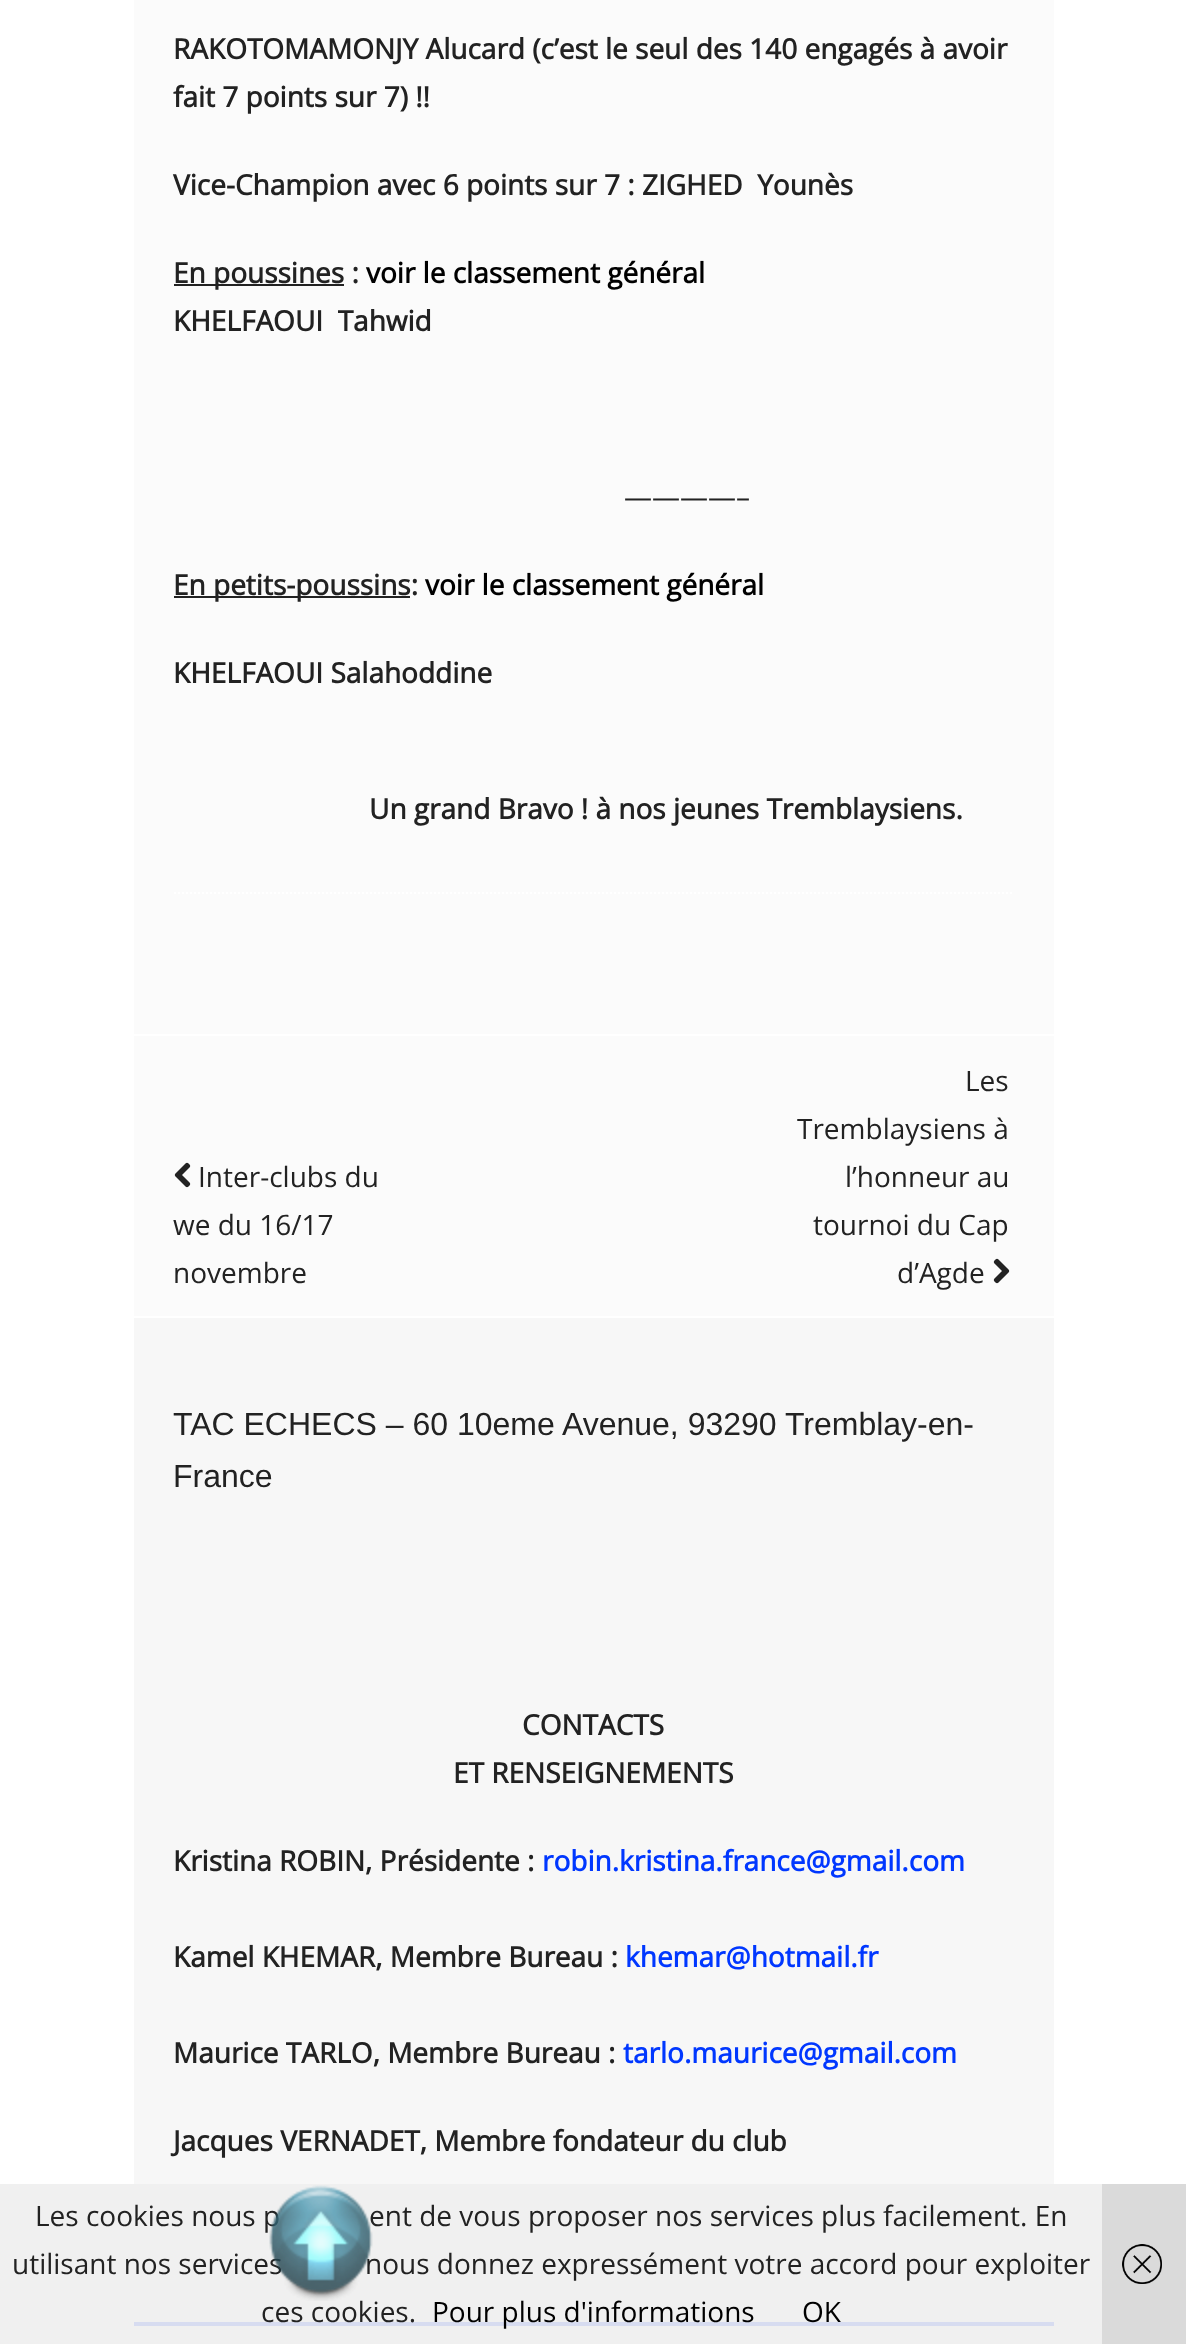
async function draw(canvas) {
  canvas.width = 1186;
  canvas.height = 2344;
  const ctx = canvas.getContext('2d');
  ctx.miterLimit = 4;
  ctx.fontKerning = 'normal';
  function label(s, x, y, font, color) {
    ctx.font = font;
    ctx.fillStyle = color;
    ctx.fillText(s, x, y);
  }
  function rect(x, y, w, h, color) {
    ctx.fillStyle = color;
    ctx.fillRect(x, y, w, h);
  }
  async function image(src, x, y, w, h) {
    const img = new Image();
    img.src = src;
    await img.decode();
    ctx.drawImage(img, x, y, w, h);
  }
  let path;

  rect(0, 0, 1186, 2344, '#fff');
  rect(134, 0, 920, 1316, '#fbfbfb');
  label('RAKOTOMAMONJY Alucard (c’est le seul des 140 engagés à avoir', 173, 59, 'bold 28px Open Sans', '#222');
  label('fait 7 points sur 7) !!', 173, 107, 'bold 28px Open Sans', '#222');
  label('Vice-Champion avec 6 points sur 7 : ZIGHED  Younès', 173, 195, 'bold 28px Open Sans', '#222');
  rect(174, 284, 170, 2, '#222');
  label('En poussines :', 173, 283, 'bold 28px Open Sans', '#222');
  label('voir le classement général', 366, 283, 'bold 28px Open Sans', '#000');
  label('KHELFAOUI  Tahwid', 173, 331, 'bold 28px Open Sans', '#222');
  label('————–', 624, 507, '28px Open Sans', '#222');
  rect(174, 596, 236, 2, '#222');
  label('En petits-poussins:', 173, 595, 'bold 28px Open Sans', '#222');
  label('voir le classement général', 425, 595, 'bold 28px Open Sans', '#000');
  label('KHELFAOUI Salahoddine', 173, 683, 'bold 28px Open Sans', '#222');
  label('Un grand Bravo ! à nos jeunes Tremblaysiens.', 369, 819, 'bold 28px Open Sans', '#222');
  path = new Path2D('M174 893H1014');
  ctx.strokeStyle = '#fff';
  ctx.lineWidth = 2;
  ctx.setLineDash([2, 2]);
  ctx.stroke(path);
  rect(134, 1034, 920, 2, '#fff');
  await image('assets/img1.png', 174, 1162, 17, 26);
  label('Inter-clubs du', 198, 1187, '28px Open Sans', '#222');
  label('we du 16/17', 173, 1235, '28px Open Sans', '#222');
  label('novembre', 173, 1283, '28px Open Sans', '#222');
  label('Les', 965, 1091, '28px Open Sans', '#222');
  label('Tremblaysiens à', 797, 1139, '28px Open Sans', '#222');
  label('l’honneur au', 845, 1187, '28px Open Sans', '#222');
  label('tournoi du Cap', 813, 1235, '28px Open Sans', '#222');
  label('d’Agde', 897, 1283, '28px Open Sans', '#222');
  await image('assets/img2.png', 993, 1258, 17, 26);
  rect(134, 1318, 920, 1004, '#f7f7f7');
  label('TAC ECHECS – 60 10eme Avenue, 93290 Tremblay-en-', 173, 1435, '32px Liberation Sans', '#222');
  label('France', 173, 1487, '32px Liberation Sans', '#222');
  label('CONTACTS', 522, 1735, 'bold 28px Open Sans', '#222');
  label('ET RENSEIGNEMENTS', 453, 1783, 'bold 28px Open Sans', '#222');
  label('Kristina ROBIN, Présidente :', 173, 1871, 'bold 28px Open Sans', '#222');
  label('robin.kristina.france@gmail.com', 542, 1871, 'bold 28px Open Sans', '#0037ff');
  label('Kamel KHEMAR, Membre Bureau :', 173, 1967, 'bold 28px Open Sans', '#222');
  label('khemar@hotmail.fr', 625, 1967, 'bold 28px Open Sans', '#0037ff');
  label('Maurice TARLO, Membre Bureau :', 173, 2063, 'bold 28px Open Sans', '#222');
  label('tarlo.maurice@gmail.com', 623, 2063, 'bold 28px Open Sans', '#0037ff');
  label('Jacques VERNADET, Membre fondateur du club', 173, 2151, 'bold 28px Open Sans', '#222');
  rect(134, 2322, 920, 4, '#0037ff');
  rect(0, 2184, 1102, 160, '#eeeeeee6');
  label('Les cookies nous p', 35, 2226, '28px Open Sans', '#222');
  label('ent de vous proposer nos services plus facilement. En', 369, 2226, '28px Open Sans', '#222');
  label('utilisant nos services', 12, 2274, '28px Open Sans', '#222');
  label('nous donnez expressément votre accord pour exploiter', 365, 2274, '28px Open Sans', '#222');
  label('ces cookies.', 261, 2322, '28px Open Sans', '#222');
  await image('assets/img3.png', 269, 2185, 104, 116);
  label('Pour plus d\'informations', 432, 2322, '28px Open Sans', '#000');
  label('OK', 802, 2322, '28px Open Sans', '#000');
  rect(1102, 2184, 84, 160, '#dadada');
  await image('assets/img4.png', 1122, 2244, 40, 40);
}

draw(document.querySelector('canvas'));
